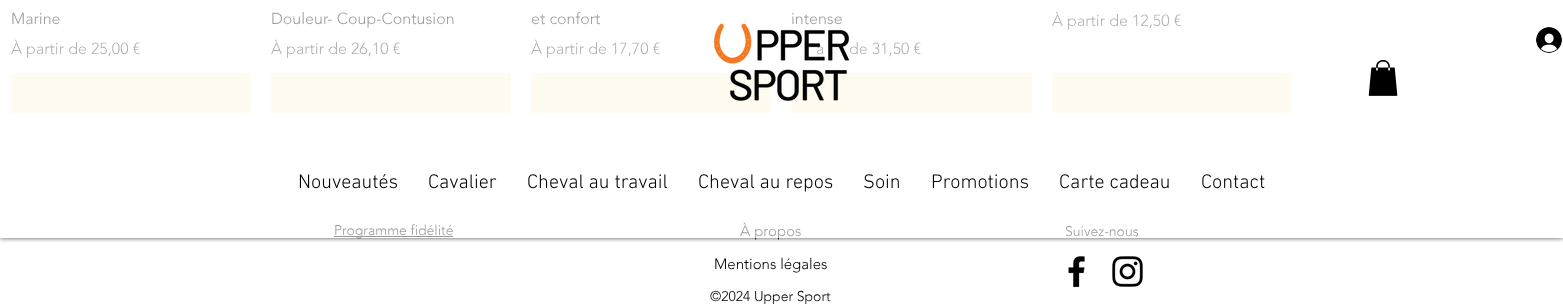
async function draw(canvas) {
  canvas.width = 1563;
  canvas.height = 304;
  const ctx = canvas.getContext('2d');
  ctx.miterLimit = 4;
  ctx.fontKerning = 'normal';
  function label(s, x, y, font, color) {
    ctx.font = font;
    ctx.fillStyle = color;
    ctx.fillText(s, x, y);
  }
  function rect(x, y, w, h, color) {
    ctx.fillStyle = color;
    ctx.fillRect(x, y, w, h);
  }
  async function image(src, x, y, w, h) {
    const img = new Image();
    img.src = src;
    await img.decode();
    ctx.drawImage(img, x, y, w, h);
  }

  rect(0, 0, 1563, 304, '#fff');
  label('Marine', 11, 24, '300 16px "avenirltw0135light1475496"', '#000');
  label('À partir de 25,00 €', 11, 54, '300 16px "avenirltw0135light1475496"', '#404040');
  rect(11, 73, 240, 40, '#fff4dd');
  label('Douleur- Coup-Contusion', 271, 24, '300 16px "avenirltw0135light1475496"', '#000');
  label('À partir de 26,10 €', 271, 54, '300 16px "avenirltw0135light1475496"', '#404040');
  rect(271, 73, 240, 40, '#fff4dd');
  label('et confort', 531, 24, '300 16px "avenirltw0135light1475496"', '#000');
  label('À partir de 17,70 €', 531, 54, '300 16px "avenirltw0135light1475496"', '#404040');
  rect(531, 73, 240, 40, '#fff4dd');
  label('intense', 791, 24, '300 16px "avenirltw0135light1475496"', '#000');
  label('a', 816, 54, '300 16px "avenirltw0135light1475496"', '#404040');
  label('de 31,50 €', 849, 54, '300 16px "avenirltw0135light1475496"', '#404040');
  rect(791, 73, 241, 40, '#fff4dd');
  label('À partir de 12,50 €', 1052, 26, '300 16px "avenirltw0135light1475496"', '#404040');
  rect(1052, 73, 240, 40, '#fff4dd');
  rect(334, 236, 119, 1, '#000');
  ctx.save();
  ctx.beginPath();
  ctx.rect(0, 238, 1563, 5);
  ctx.clip();
  ctx.fillStyle = '#000000b3';
  ctx.filter = 'blur(2.5px)';
  ctx.beginPath();
  ctx.rect(0, 0, 1563, 238);
  ctx.fill();
  ctx.filter = 'none';
  ctx.restore();
  label('Programme fidélité', 334, 235, '300 14px "avenirltw0135light1475496"', '#000');
  label('À propos', 740, 236, '300 15px "avenirltw0135light1475496"', '#000');
  label('Suivez-nous', 1065, 236, '300 14px "avenirltw0135light1475496"', '#000');
  rect(11, 11, 1281, 227, '#ffffff99');
  await image('assets/img1.png', 713, 23, 137, 78);
  await image('assets/img2.png', 1536, 27, 26, 26);
  await image('assets/img3.png', 1368, 60, 30, 36);
  label('Nouveautés', 298, 188, '300 20px "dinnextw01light"', '#000');
  label('Cavalier', 428, 188, '300 20px "dinnextw01light"', '#000');
  label('Cheval au travail', 527, 188, '300 20px "dinnextw01light"', '#000');
  label('Cheval au repos', 698, 188, '300 20px "dinnextw01light"', '#000');
  label('Soin', 863, 188, '300 20px "dinnextw01light"', '#000');
  label('Promotions', 931, 188, '300 20px "dinnextw01light"', '#000');
  label('Carte cadeau', 1059, 188, '300 20px "dinnextw01light"', '#000');
  label('Contact', 1201, 188, '300 20px "dinnextw01light"', '#000');
  label('Mentions légales', 714, 269, '300 15px "avenirltw0135light1475496"', '#000');
  await image('assets/img4.png', 1068, 256, 17, 32);
  await image('assets/img5.png', 1112, 256, 31, 31);
  label('©2024 Upper Sport', 710, 301, '300 14px "avenirltw0135light1475496"', '#000');
}

draw(document.querySelector('canvas'));
